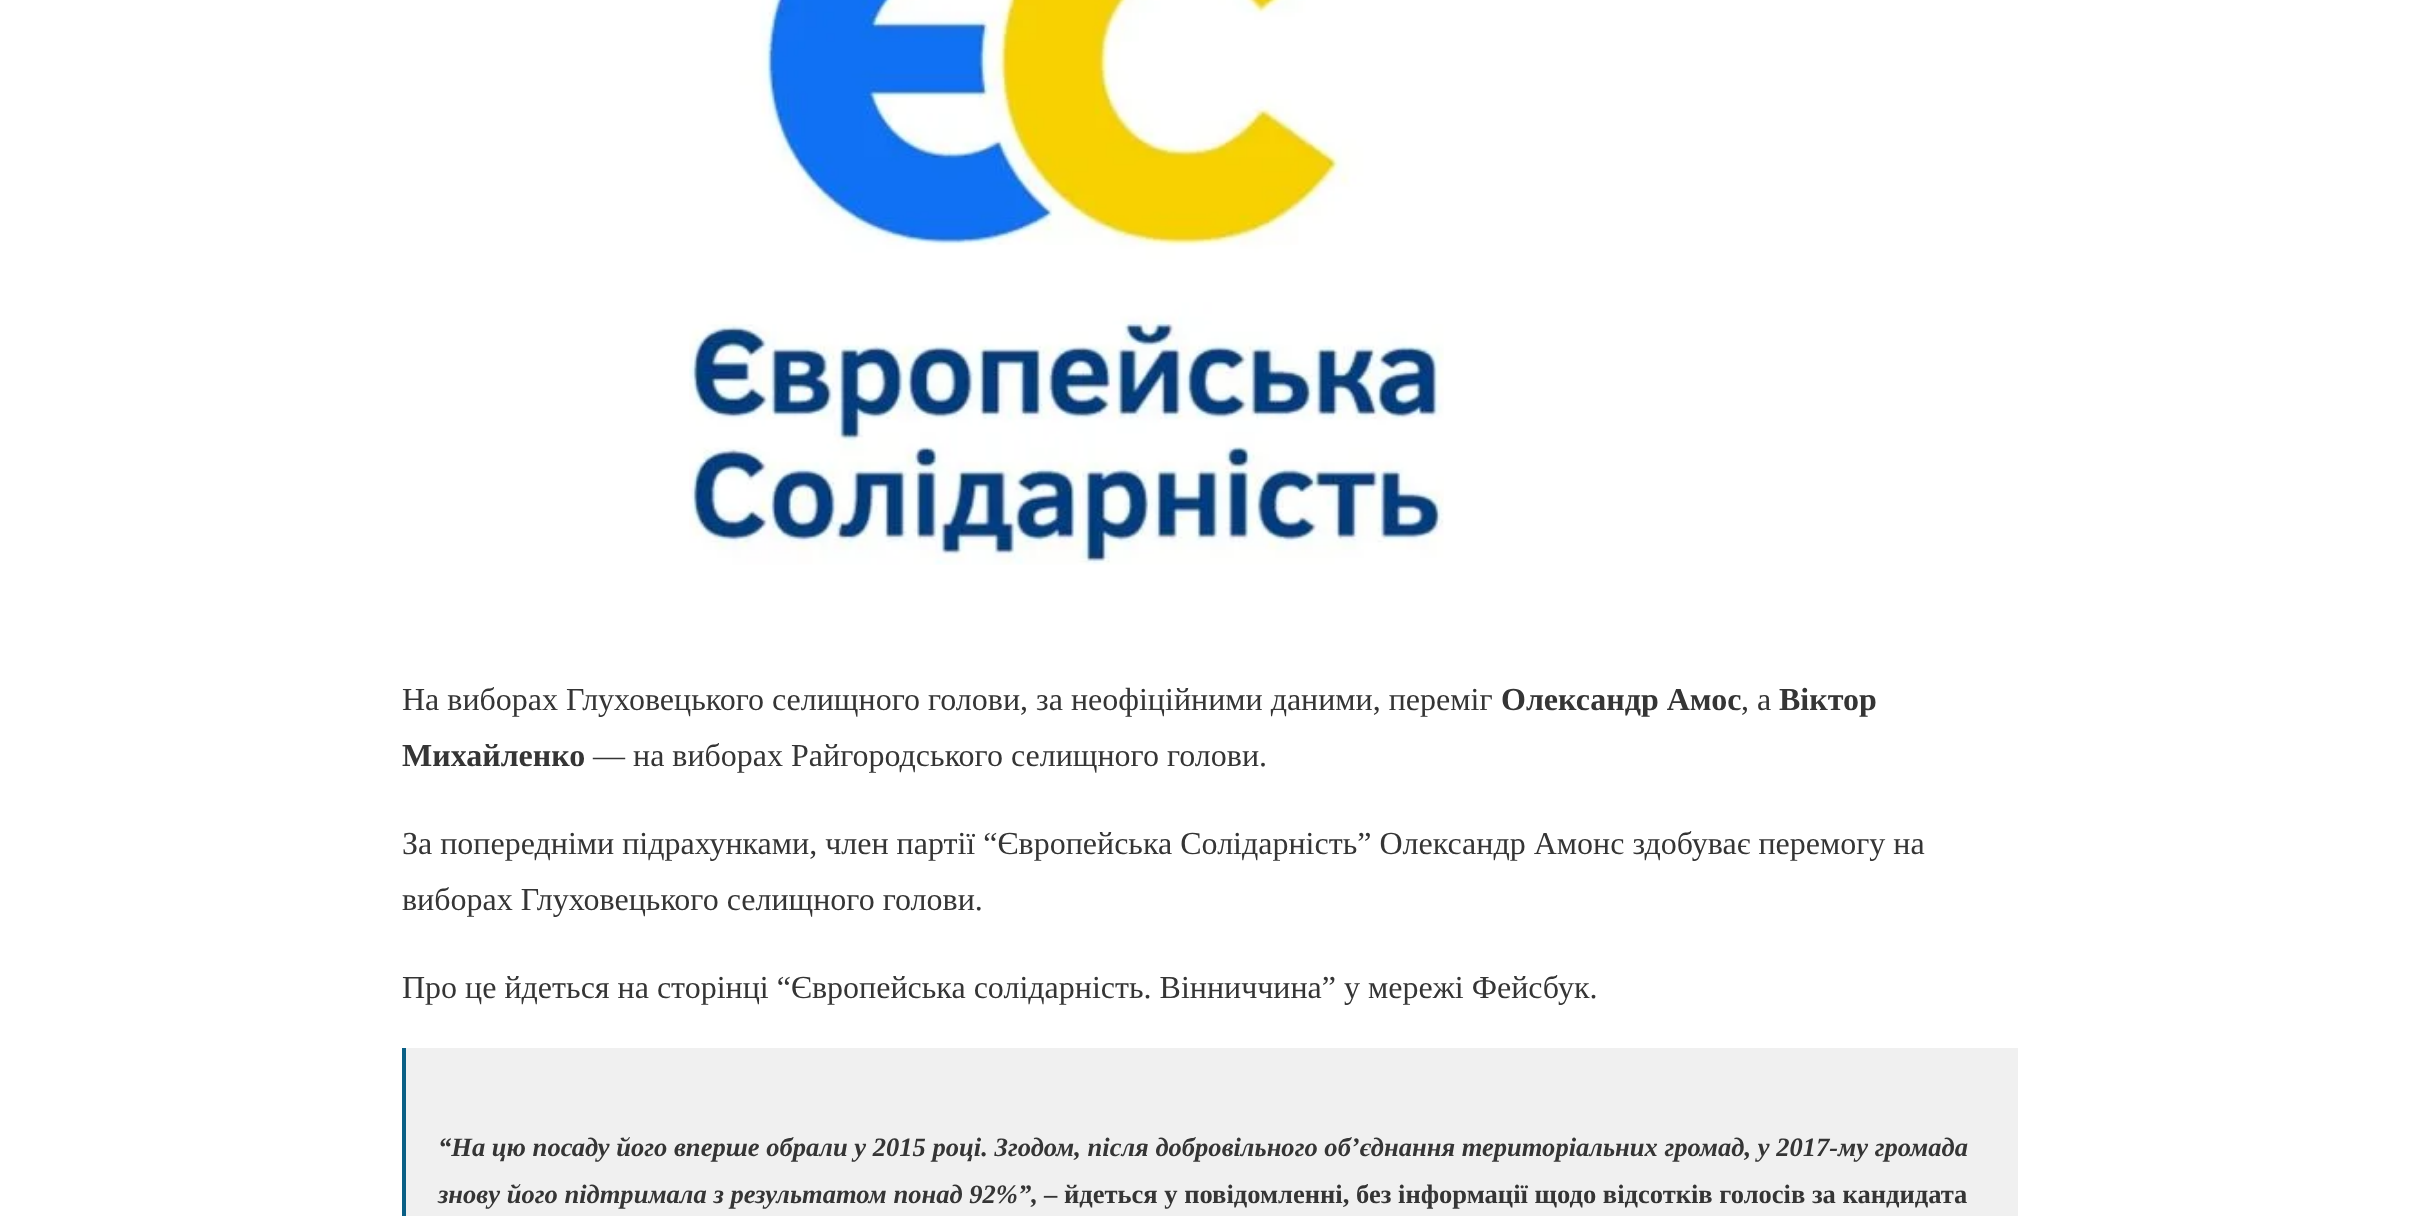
async function draw(canvas) {
  canvas.width = 2419;
  canvas.height = 1216;
  const ctx = canvas.getContext('2d');
  ctx.miterLimit = 4;
  ctx.fontKerning = 'normal';
  function label(s, x, y, font, color) {
    ctx.font = font;
    ctx.fillStyle = color;
    ctx.fillText(s, x, y);
  }
  function rect(x, y, w, h, color) {
    ctx.fillStyle = color;
    ctx.fillRect(x, y, w, h);
  }
  async function image(src, x, y, w, h) {
    const img = new Image();
    img.src = src;
    await img.decode();
    ctx.drawImage(img, x, y, w, h);
  }

  rect(0, 0, 2419, 1216, '#fff');
  await image('assets/img1.png', 689, 0, 755, 565);
  label('На виборах Глуховецького селищного голови, за неофіційними даними, переміг', 402, 710, '32px Liberation Serif', '#353535');
  label('Олександр Амос', 1501, 710, 'bold 32px Liberation Serif', '#353535');
  label(', а', 1741, 710, '32px Liberation Serif', '#353535');
  label('Віктор', 1779, 710, 'bold 32px Liberation Serif', '#353535');
  label('Михайленко', 402, 766, 'bold 32px Liberation Serif', '#353535');
  label('— на виборах Райгородського селищного голови.', 593, 766, '32px Liberation Serif', '#353535');
  label('За попередніми підрахунками, член партії “Європейська Солідарність” Олександр Амонс здобуває перемогу на', 402, 854, '32px Liberation Serif', '#353535');
  label('виборах Глуховецького селищного голови.', 402, 910, '32px Liberation Serif', '#353535');
  label('Про це йдеться на сторінці “Європейська солідарність. Вінниччина” у мережі Фейсбук.', 402, 998, '32px Liberation Serif', '#353535');
  rect(406, 1048, 1612, 168, '#f0f0f0');
  rect(402, 1048, 4, 168, '#0a5f85');
  label('“На цю посаду його вперше обрали у 2015 році. Згодом, після добровільного об’єднання територіальних громад, у 2017-му громада', 438, 1156, 'italic bold 26.55px Liberation Serif', '#353535');
  label('знову його підтримала з результатом понад 92%”,', 438, 1203, 'italic bold 26.55px Liberation Serif', '#353535');
  label('– йдеться у повідомленні, без інформації щодо відсотків голосів за кандидата', 1044, 1203, 'bold 26.55px Liberation Serif', '#353535');
}

draw(document.querySelector('canvas'));
